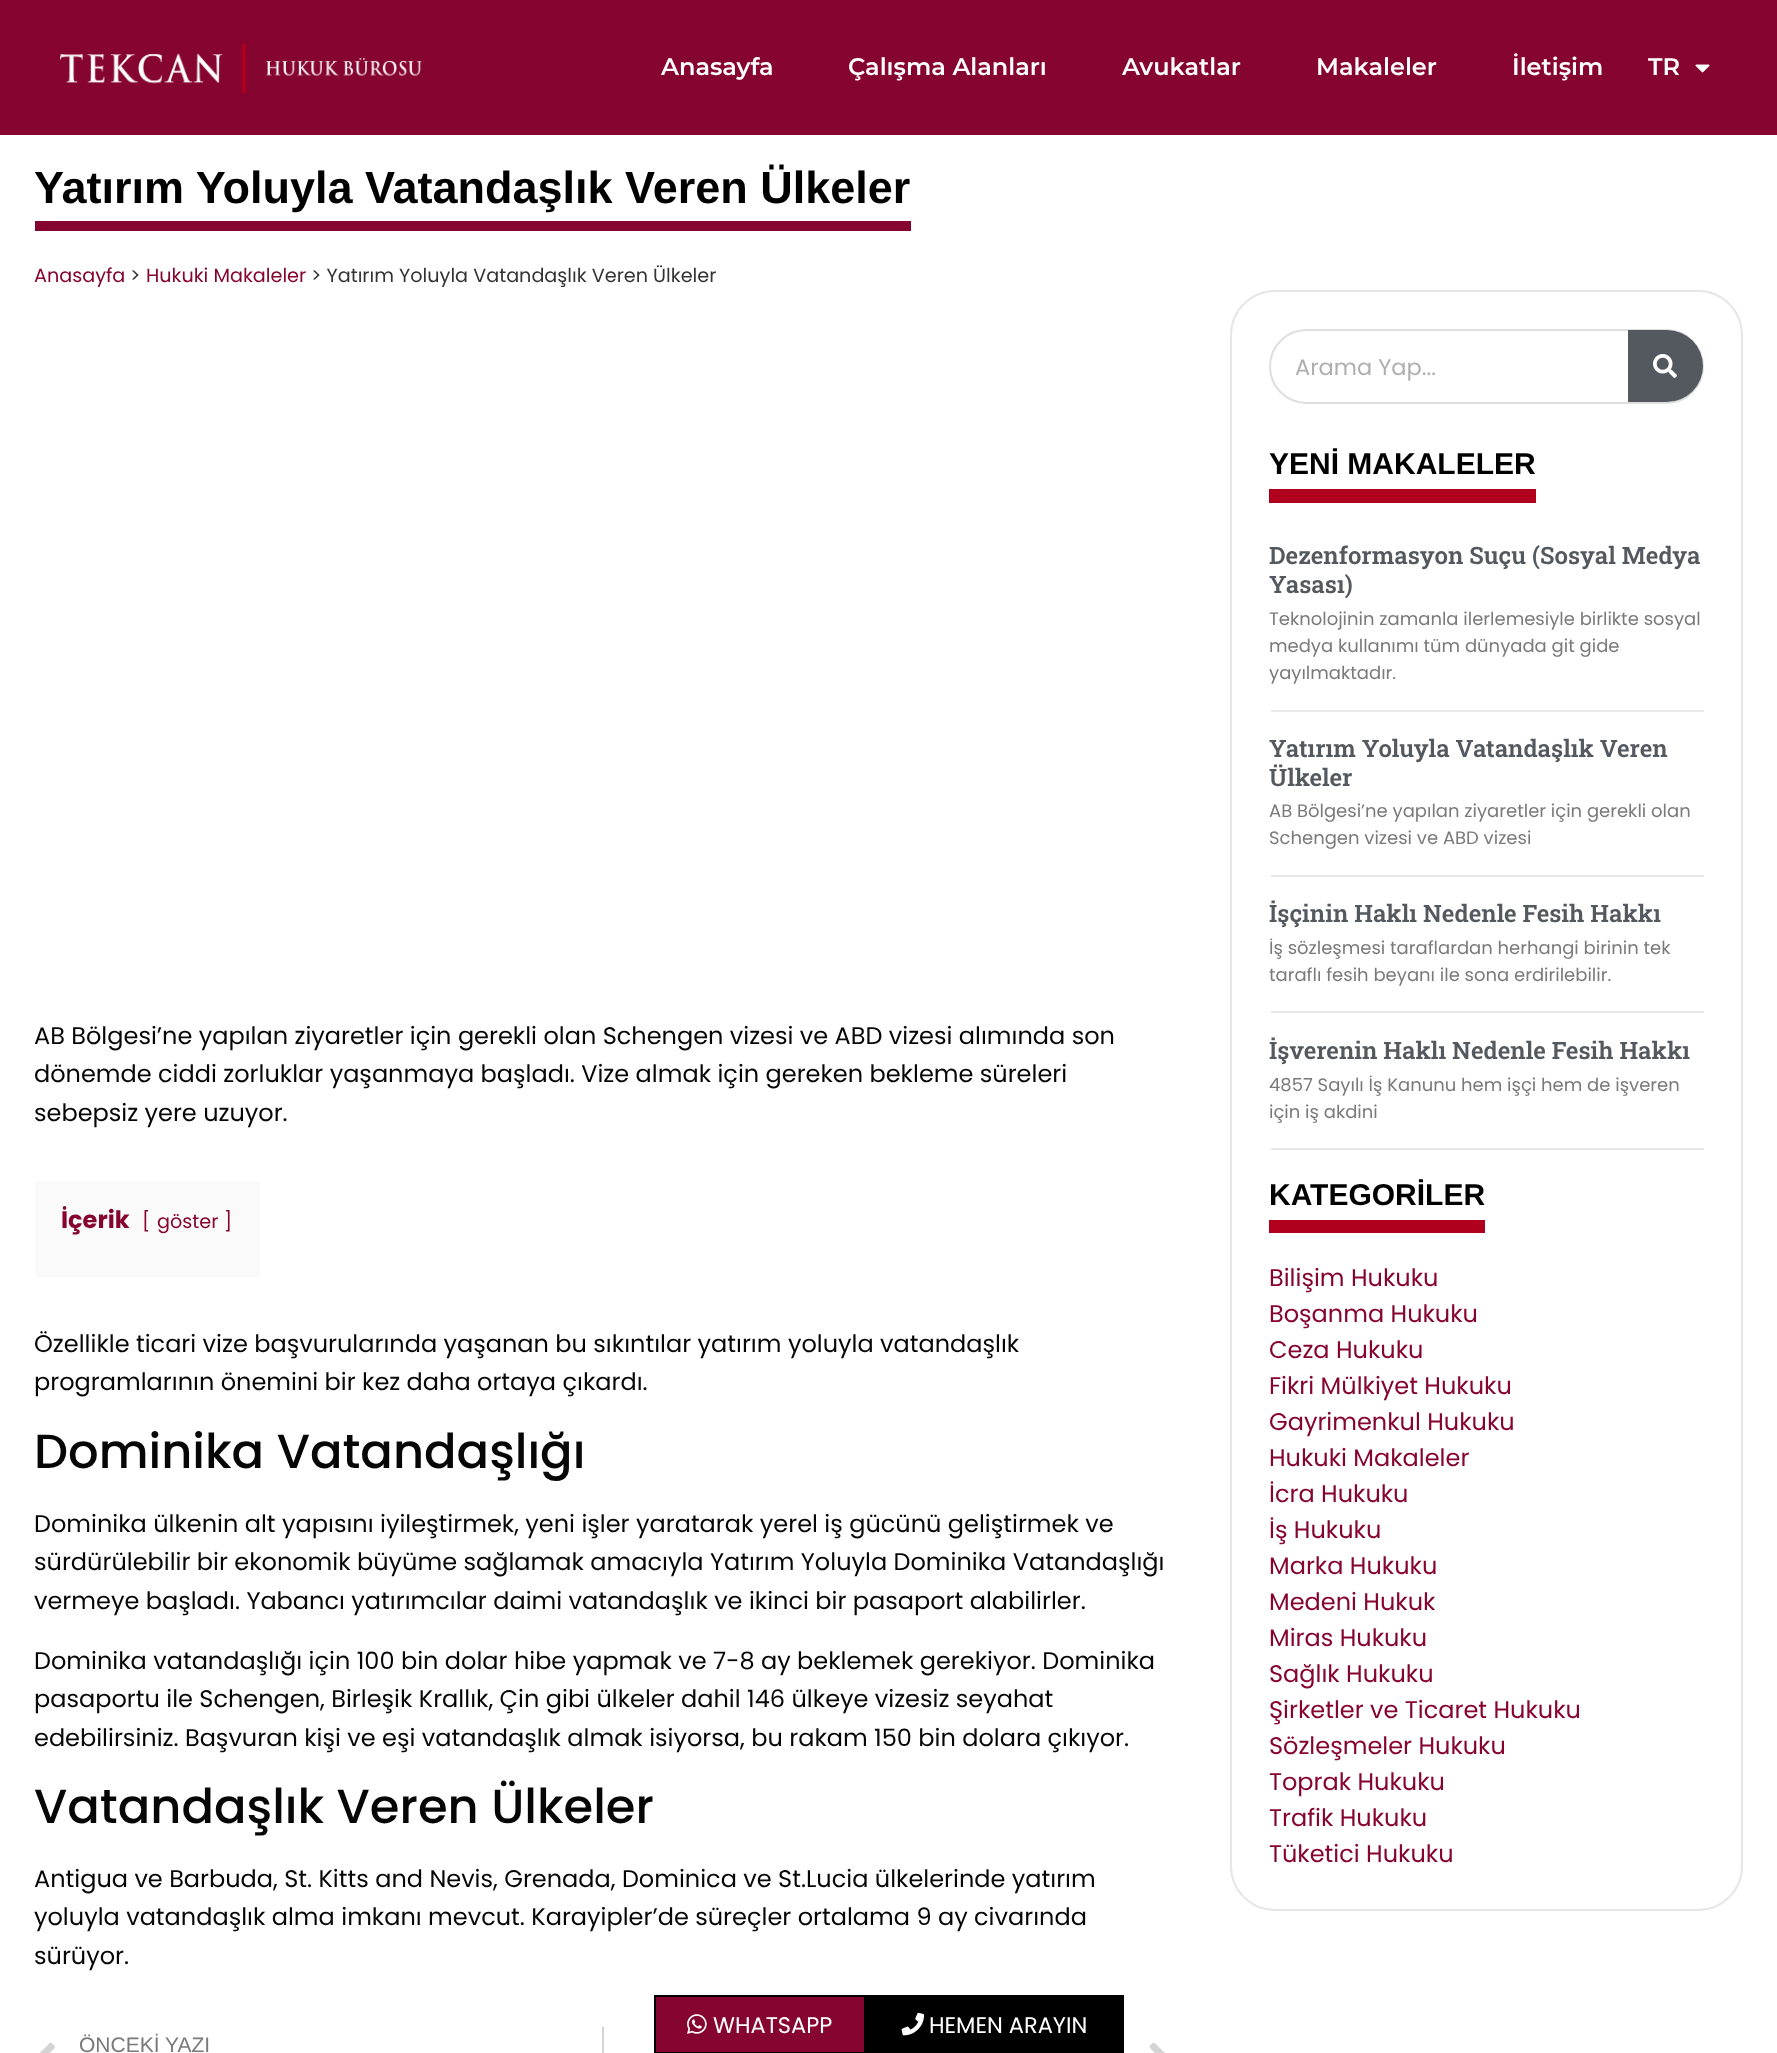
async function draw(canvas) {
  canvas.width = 1777;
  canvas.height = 2053;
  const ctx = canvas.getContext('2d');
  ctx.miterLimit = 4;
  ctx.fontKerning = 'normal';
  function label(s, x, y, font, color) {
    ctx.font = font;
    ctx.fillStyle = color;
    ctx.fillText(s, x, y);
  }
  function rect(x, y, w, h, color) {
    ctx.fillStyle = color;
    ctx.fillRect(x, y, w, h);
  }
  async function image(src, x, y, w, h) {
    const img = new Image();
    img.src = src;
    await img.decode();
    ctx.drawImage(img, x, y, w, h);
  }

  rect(0, 0, 1777, 2053, '#fff');
  rect(0, 0, 1777, 135, '#860430');
  await image('assets/img1.png', 60, 43, 362, 50);
  label('Anasayfa', 661, 75, '600 24px Montserrat', '#fff');
  label('Çalışma Alanları', 848, 75, '600 24px Montserrat', '#fff');
  label('Avukatlar', 1122, 75, '600 24px Montserrat', '#fff');
  label('Makaleler', 1316, 75, '600 24px Montserrat', '#fff');
  label('İletişim', 1512, 75, '600 24px Montserrat', '#fff');
  label('TR', 1648, 75, '600 24px Montserrat', '#fff');
  await image('assets/img2.png', 1695, 64, 15, 9);
  rect(35, 221, 876, 10, '#860430');
  label('Yatırım Yoluyla Vatandaşlık Veren Ülkeler', 34, 203, 'bold 45px Liberation Sans', '#000');
  label('Anasayfa', 34, 282, '19.2px Poppins', '#860430');
  label('>', 130, 282, '19.2px Poppins', '#333');
  label('Hukuki Makaleler', 146, 282, '19.2px Poppins', '#860430');
  label('> Yatırım Yoluyla Vatandaşlık Veren Ülkeler', 311, 282, '19.2px Poppins', '#333');
  label('AB Bölgesi’ne yapılan ziyaretler için gerekli olan Schengen vizesi ve ABD vizesi alımında son', 34, 1044, '24px Poppins', '#060606');
  label('dönemde ciddi zorluklar yaşanmaya başladı. Vize almak için gereken bekleme süreleri', 34, 1082, '24px Poppins', '#060606');
  label('sebepsiz yere uzuyor.', 34, 1121, '24px Poppins', '#060606');
  rect(35, 1181, 225, 96, '#fafafa');
  label('İçerik', 61, 1228, 'bold 24px Poppins', '#860430');
  label('[', 142, 1228, '19.2px Poppins', '#860430');
  label('göster', 157, 1228, '19.2px Poppins', '#860430');
  label(']', 224, 1228, '19.2px Poppins', '#860430');
  label('Özellikle ticari vize başvurularında yaşanan bu sıkıntılar yatırım yoluyla vatandaşlık', 34, 1352, '24px Poppins', '#060606');
  label('programlarının önemini bir kez daha ortaya çıkardı.', 34, 1390, '24px Poppins', '#060606');
  label('Dominika Vatandaşlığı', 34, 1468, '500 48px Poppins', '#060606');
  label('Dominika ülkenin alt yapısını iyileştirmek, yeni işler yaratarak yerel iş gücünü geliştirmek ve', 34, 1532, '24px Poppins', '#060606');
  label('sürdürülebilir bir ekonomik büyüme sağlamak amacıyla Yatırım Yoluyla Dominika Vatandaşlığı', 34, 1570, '24px Poppins', '#060606');
  label('vermeye başladı. Yabancı yatırımcılar daimi vatandaşlık ve ikinci bir pasaport alabilirler.', 34, 1609, '24px Poppins', '#060606');
  label('Dominika vatandaşlığı için 100 bin dolar hibe yapmak ve 7-8 ay beklemek gerekiyor. Dominika', 34, 1669, '24px Poppins', '#060606');
  label('pasaportu ile Schengen, Birleşik Krallık, Çin gibi ülkeler dahil 146 ülkeye vizesiz seyahat', 34, 1707, '24px Poppins', '#060606');
  label('edebilirsiniz. Başvuran kişi ve eşi vatandaşlık almak isiyorsa, bu rakam 150 bin dolara çıkıyor.', 34, 1746, '24px Poppins', '#060606');
  label('Vatandaşlık Veren Ülkeler', 34, 1823, '500 48px Poppins', '#060606');
  label('Antigua ve Barbuda, St. Kitts and Nevis, Grenada, Dominica ve St.Lucia ülkelerinde yatırım', 34, 1887, '24px Poppins', '#060606');
  label('yoluyla vatandaşlık alma imkanı mevcut. Karayipler’de süreçler ortalama 9 ay civarında', 34, 1925, '24px Poppins', '#060606');
  label('sürüyor.', 34, 1964, '24px Poppins', '#060606');
  await image('assets/img3.png', 40, 2042, 15, 11);
  ctx.save();
  ctx.beginPath();
  ctx.rect(80, 2030, 333, 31);
  ctx.clip();
  label('ÖNCEKİ YAZI', 79, 2052, '21px Liberation Sans', '#7a7a7a');
  ctx.restore();
  rect(602, 2027, 2, 26, '#d4d4d4');
  await image('assets/img4.png', 1149, 2042, 16, 11);
  ctx.beginPath();
  ctx.roundRect(1231, 291, 511, 1619, 44);
  ctx.strokeStyle = '#e6e6e6';
  ctx.lineWidth = 2;
  ctx.stroke();
  ctx.beginPath();
  ctx.roundRect(1270, 330, 433, 73, 36.5);
  ctx.strokeStyle = '#dedede';
  ctx.stroke();
  label('Arama Yap...', 1295, 375, '22.5px Poppins', '#afafaf');
  ctx.fillStyle = '#54595f';
  ctx.beginPath();
  ctx.roundRect(1628, 330, 75, 72, [0, 36, 36, 0]);
  ctx.fill();
  await image('assets/img5.png', 1653, 354, 24, 24);
  rect(1269, 489, 267, 14, '#b1001e');
  label('YENİ MAKALELER', 1269, 474, 'bold 30px Liberation Sans', '#000');
  rect(1271, 710, 433, 2, '#e8e8e8');
  label('Dezenformasyon Suçu (Sosyal Medya', 1269, 564, '600 24px Roboto Slab', '#54595f');
  label('Yasası)', 1269, 593, '600 24px Roboto Slab', '#54595f');
  label('Teknolojinin zamanla ilerlemesiyle birlikte sosyal', 1269, 625, '18px Poppins', '#7a7a7a');
  label('medya kullanımı tüm dünyada git gide', 1269, 652, '18px Poppins', '#7a7a7a');
  label('yayılmaktadır.', 1269, 679, '18px Poppins', '#7a7a7a');
  rect(1271, 875, 433, 2, '#e8e8e8');
  label('Yatırım Yoluyla Vatandaşlık Veren', 1269, 757, '600 24px Roboto Slab', '#54595f');
  label('Ülkeler', 1269, 786, '600 24px Roboto Slab', '#54595f');
  label('AB Bölgesi’ne yapılan ziyaretler için gerekli olan', 1269, 817, '18px Poppins', '#7a7a7a');
  label('Schengen vizesi ve ABD vizesi', 1269, 844, '18px Poppins', '#7a7a7a');
  rect(1271, 1011, 433, 2, '#e8e8e8');
  label('İşçinin Haklı Nedenle Fesih Hakkı', 1269, 922, '600 24px Roboto Slab', '#54595f');
  label('İş sözleşmesi taraflardan herhangi birinin tek', 1269, 954, '18px Poppins', '#7a7a7a');
  label('taraflı fesih beyanı ile sona erdirilebilir.', 1269, 981, '18px Poppins', '#7a7a7a');
  rect(1271, 1148, 433, 2, '#e8e8e8');
  label('İşverenin Haklı Nedenle Fesih Hakkı', 1269, 1059, '600 24px Roboto Slab', '#54595f');
  label('4857 Sayılı İş Kanunu hem işçi hem de işveren', 1269, 1091, '18px Poppins', '#7a7a7a');
  label('için iş akdini', 1269, 1118, '18px Poppins', '#7a7a7a');
  rect(1269, 1220, 216, 13, '#b1001e');
  label('KATEGORİLER', 1269, 1205, 'bold 30px Liberation Sans', '#000');
  label('Bilişim Hukuku', 1269, 1286, '24px Poppins', '#860430');
  label('Boşanma Hukuku', 1269, 1322, '24px Poppins', '#860430');
  label('Ceza Hukuku', 1269, 1358, '24px Poppins', '#860430');
  label('Fikri Mülkiyet Hukuku', 1269, 1394, '24px Poppins', '#860430');
  label('Gayrimenkul Hukuku', 1269, 1430, '24px Poppins', '#860430');
  label('Hukuki Makaleler', 1269, 1466, '24px Poppins', '#860430');
  label('İcra Hukuku', 1269, 1502, '24px Poppins', '#860430');
  label('İş Hukuku', 1269, 1538, '24px Poppins', '#860430');
  label('Marka Hukuku', 1269, 1574, '24px Poppins', '#860430');
  label('Medeni Hukuk', 1269, 1610, '24px Poppins', '#860430');
  label('Miras Hukuku', 1269, 1646, '24px Poppins', '#860430');
  label('Sağlık Hukuku', 1269, 1682, '24px Poppins', '#860430');
  label('Şirketler ve Ticaret Hukuku', 1269, 1718, '24px Poppins', '#860430');
  label('Sözleşmeler Hukuku', 1269, 1754, '24px Poppins', '#860430');
  label('Toprak Hukuku', 1269, 1790, '24px Poppins', '#860430');
  label('Trafik Hukuku', 1269, 1826, '24px Poppins', '#860430');
  label('Tüketici Hukuku', 1269, 1862, '24px Poppins', '#860430');
  ctx.beginPath();
  ctx.rect(655, 1996, 210, 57);
  ctx.fill();
  ctx.strokeStyle = '#000';
  ctx.stroke();
  await image('assets/img6.png', 687, 2014, 20, 20);
  label('WHATSAPP', 713, 2033, '22.5px Poppins', '#fff');
  rect(866, 1995, 258, 58, '#000');
  await image('assets/img7.png', 901, 2012, 23, 24);
  label('HEMEN ARAYIN', 929, 2033, '22.5px Poppins', '#fff');
}

draw(document.querySelector('canvas'));
